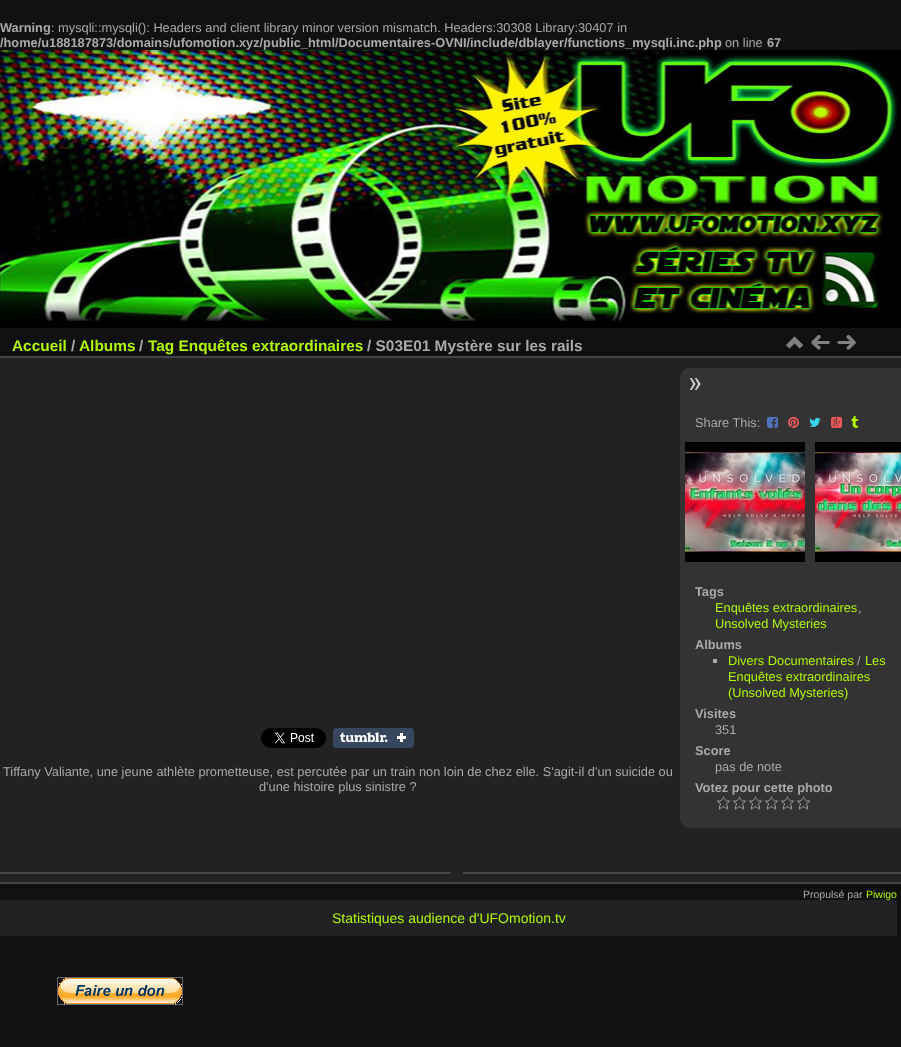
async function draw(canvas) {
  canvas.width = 901;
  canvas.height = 1047;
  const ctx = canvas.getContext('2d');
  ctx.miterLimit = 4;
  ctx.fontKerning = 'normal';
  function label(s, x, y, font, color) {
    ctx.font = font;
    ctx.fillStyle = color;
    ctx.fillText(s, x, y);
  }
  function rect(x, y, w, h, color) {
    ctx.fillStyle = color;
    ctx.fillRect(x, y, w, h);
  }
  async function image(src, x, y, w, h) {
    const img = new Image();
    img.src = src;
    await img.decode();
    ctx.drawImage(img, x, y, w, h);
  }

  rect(0, 0, 901, 1047, '#111');
  label('Warning', 0, 32, 'bold 12.8px Liberation Sans', '#aaa');
  label(': mysqli::mysqli(): Headers and client library minor version mismatch. Headers:30308 Library:30407 in', 51, 32, '12.8px Liberation Sans', '#aaa');
  label('/home/u188187873/domains/ufomotion.xyz/public_html/Documentaires-OVNI/include/dblayer/functions_mysqli.inc.php', 0, 47, 'bold 12.8px Liberation Sans', '#aaa');
  label('on line', 725, 47, '12.8px Liberation Sans', '#aaa');
  label('67', 767, 47, 'bold 12.8px Liberation Sans', '#aaa');
  await image('assets/img1.png', 0, 50, 901, 278);
  rect(0, 358, 901, 524, '#222');
  rect(0, 882, 901, 2, '#444');
  rect(0, 356, 901, 2, '#444');
  label('Accueil', 12, 351, 'bold 15.4px Liberation Sans', '#b0f906');
  label('/', 71, 351, 'bold 15.4px Liberation Sans', '#aaa');
  label('Albums', 79, 351, 'bold 15.4px Liberation Sans', '#b0f906');
  label('/', 139, 351, 'bold 15.4px Liberation Sans', '#aaa');
  label('Tag Enquêtes extraordinaires', 148, 351, 'bold 15.4px Liberation Sans', '#b0f906');
  label('/ S03E01 Mystère sur les rails', 367, 351, 'bold 15.4px Liberation Sans', '#aaa');
  await image('assets/img2.png', 786, 336, 17, 13);
  await image('assets/img3.png', 811, 335, 19, 15);
  await image('assets/img4.png', 837, 335, 19, 15);
  ctx.fillStyle = '#333';
  ctx.beginPath();
  ctx.roundRect(680, 368, 221, 460, [10, 0, 0, 10]);
  ctx.fill();
  await image('assets/img5.png', 689, 378, 12, 12);
  await image('assets/img6.png', 261, 728, 65, 20);
  await image('assets/img7.png', 333, 728, 81, 20);
  label('Tiffany Valiante, une jeune athlète prometteuse, est percutée par un train non loin de chez elle. S\'agit-il d\'un suicide ou', 3, 776, '12.8px Liberation Sans', '#aaa');
  label('d\'une histoire plus sinistre ?', 259, 791, '12.8px Liberation Sans', '#aaa');
  label('Share This:', 695, 427, '12.8px Liberation Sans', '#aaa');
  await image('assets/img8.png', 767, 416, 11, 12);
  await image('assets/img9.png', 788, 416, 11, 12);
  await image('assets/img10.png', 809, 417, 12, 10);
  await image('assets/img11.png', 831, 416, 11, 12);
  await image('assets/img12.png', 851, 416, 8, 12);
  await image('assets/img13.png', 685, 442, 120, 120);
  await image('assets/img14.png', 815, 442, 86, 120);
  label('Tags', 695, 596, 'bold 12.8px Liberation Sans', '#aaa');
  label('Enquêtes extraordinaires', 715, 612, '12.8px Liberation Sans', '#b0f906');
  label(',', 858, 612, '12.8px Liberation Sans', '#aaa');
  label('Unsolved Mysteries', 715, 628, '12.8px Liberation Sans', '#b0f906');
  label('Albums', 695, 649, 'bold 12.8px Liberation Sans', '#aaa');
  rect(713, 659, 4, 4, '#aaa');
  label('Divers Documentaires', 728, 665, '12.8px Liberation Sans', '#b0f906');
  label('/', 857, 665, '12.8px Liberation Sans', '#aaa');
  label('Les', 865, 665, '12.8px Liberation Sans', '#b0f906');
  label('Enquêtes extraordinaires', 728, 681, '12.8px Liberation Sans', '#b0f906');
  label('(Unsolved Mysteries)', 728, 697, '12.8px Liberation Sans', '#b0f906');
  label('Visites', 695, 718, 'bold 12.8px Liberation Sans', '#aaa');
  label('351', 715, 734, '12.8px Liberation Sans', '#aaa');
  label('Score', 695, 755, 'bold 12.8px Liberation Sans', '#aaa');
  label('pas de note', 715, 771, '12.8px Liberation Sans', '#aaa');
  label('Votez pour cette photo', 695, 792, 'bold 12.8px Liberation Sans', '#aaa');
  await image('assets/img15.png', 717, 796, 13, 14);
  await image('assets/img15.png', 733, 796, 13, 14);
  await image('assets/img15.png', 749, 796, 13, 14);
  await image('assets/img15.png', 765, 796, 13, 14);
  await image('assets/img15.png', 781, 796, 13, 14);
  await image('assets/img15.png', 797, 796, 13, 14);
  rect(0, 872, 451, 2, '#444');
  rect(463, 872, 438, 2, '#444');
  rect(0, 900, 897, 36, '#222');
  label('Propulsé par', 803, 898, '10.5px Liberation Sans', '#aaa');
  label('Piwigo', 866, 898, '10.5px Liberation Sans', '#b0f906');
  label('Statistiques audience d\'UFOmotion.tv', 332, 923, '14px Liberation Sans', '#b0f906');
  ctx.strokeStyle = '#666';
  ctx.strokeRect(57.5, 977.5, 125, 27);
  await image('assets/img16.png', 58, 978, 124, 26);
}

draw(document.querySelector('canvas'));
